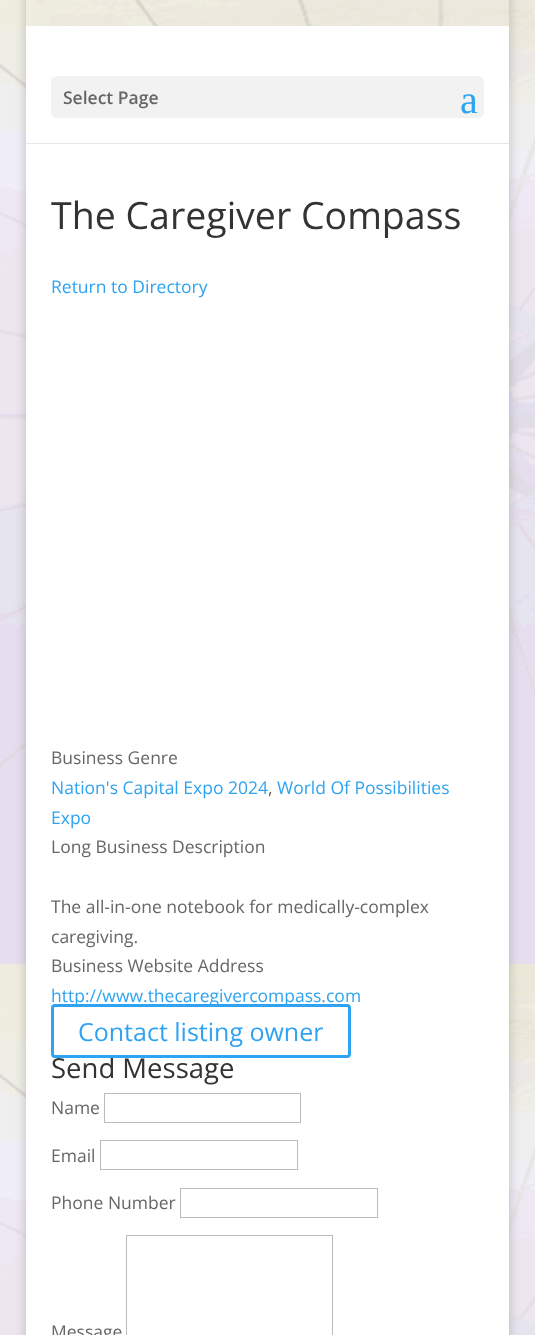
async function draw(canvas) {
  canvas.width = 535;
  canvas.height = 1335;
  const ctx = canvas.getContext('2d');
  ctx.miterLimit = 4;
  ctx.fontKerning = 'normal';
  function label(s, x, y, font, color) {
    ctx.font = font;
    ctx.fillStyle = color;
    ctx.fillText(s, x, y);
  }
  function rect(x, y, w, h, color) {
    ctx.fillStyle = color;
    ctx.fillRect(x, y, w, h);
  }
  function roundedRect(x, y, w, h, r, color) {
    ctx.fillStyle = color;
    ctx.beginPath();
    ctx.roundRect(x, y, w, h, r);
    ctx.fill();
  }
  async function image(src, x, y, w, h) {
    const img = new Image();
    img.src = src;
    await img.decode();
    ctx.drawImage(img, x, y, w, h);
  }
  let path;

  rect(0, 0, 535, 1335, '#fff');
  await image('assets/img1.png', 0, 0, 535, 1335);
  ctx.save();
  path = new Path2D('M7 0H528V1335H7ZM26-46H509V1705H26Z');
  ctx.clip(path, 'evenodd');
  ctx.fillStyle = '#00000033';
  ctx.filter = 'blur(6px)';
  ctx.beginPath();
  ctx.rect(26, -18, 483, 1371);
  ctx.fill();
  ctx.filter = 'none';
  ctx.restore();
  ctx.fillStyle = '#e6e6e6';
  path = new Path2D('M26 28V144H509V28V142H26Z');
  ctx.fill(path);
  rect(26, 26, 483, 117, '#fff');
  roundedRect(51, 76, 433, 42, 6, '#f2f2f2');
  label('Select Page', 63, 104, '600 17.5px Open Sans', '#666');
  label('a', 460, 113, '40px Liberation Serif', '#2ea3f2');
  rect(26, 144, 483, 1191, '#fff');
  label('The Caregiver Compass', 51, 229, '37.5px Open Sans', '#333');
  label('Return to Directory', 51, 293, '17.5px Open Sans', '#2ea3f2');
  label('Business Genre', 51, 764, '17.5px Open Sans', '#666');
  label('Nation\'s Capital Expo 2024', 51, 794, '17.5px Open Sans', '#2ea3f2');
  label(',', 268, 794, '17.5px Open Sans', '#666');
  label('World Of Possibilities', 277, 794, '17.5px Open Sans', '#2ea3f2');
  label('Expo', 51, 824, '17.5px Open Sans', '#2ea3f2');
  label('Long Business Description', 51, 853, '17.5px Open Sans', '#666');
  label('The all-in-one notebook for medically-complex', 51, 913, '17.5px Open Sans', '#666');
  label('caregiving.', 51, 943, '17.5px Open Sans', '#666');
  label('Business Website Address', 51, 972, '17.5px Open Sans', '#666');
  label('http://www.thecaregivercompass.com', 51, 1002, '17.5px Open Sans', '#2ea3f2');
  label('Send Message', 51, 1078, '27.5px Open Sans', '#333');
  ctx.beginPath();
  ctx.roundRect(52.5, 1005.5, 297, 51, 2.5);
  ctx.strokeStyle = '#2ea3f2';
  ctx.lineWidth = 3;
  ctx.stroke();
  label('Contact listing owner', 78, 1041, '25px Open Sans', '#2ea3f2');
  label('Name', 51, 1114, '17.5px Open Sans', '#666');
  ctx.strokeStyle = '#bbb';
  ctx.lineWidth = 1;
  ctx.strokeRect(104.5, 1093.5, 196, 29);
  label('Email', 51, 1162, '17.5px Open Sans', '#666');
  ctx.strokeRect(100.5, 1140.5, 197, 29);
  label('Phone Number', 51, 1209, '17.5px Open Sans', '#666');
  ctx.strokeRect(180.5, 1188.5, 197, 29);
  label('Message', 51, 1338, '17.5px Open Sans', '#666');
  ctx.strokeRect(126.5, 1235.5, 206, 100);
}

draw(document.querySelector('canvas'));
